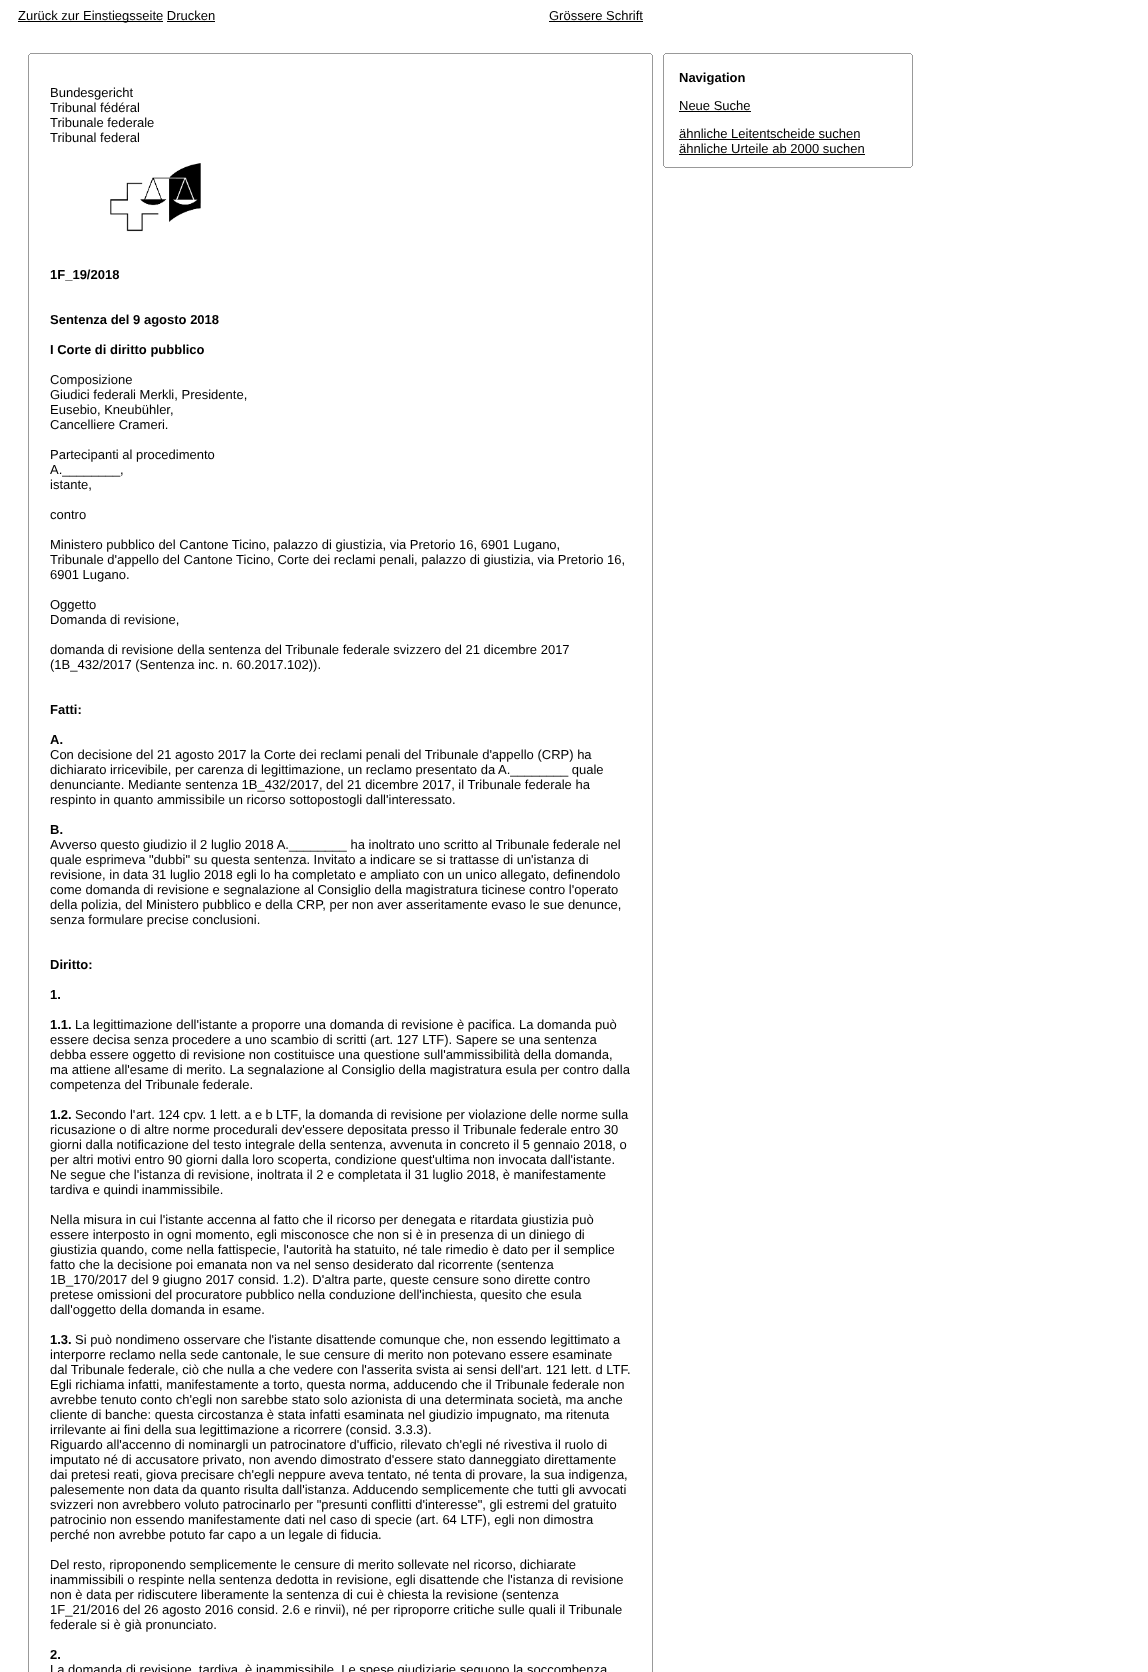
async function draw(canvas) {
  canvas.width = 1148;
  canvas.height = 1672;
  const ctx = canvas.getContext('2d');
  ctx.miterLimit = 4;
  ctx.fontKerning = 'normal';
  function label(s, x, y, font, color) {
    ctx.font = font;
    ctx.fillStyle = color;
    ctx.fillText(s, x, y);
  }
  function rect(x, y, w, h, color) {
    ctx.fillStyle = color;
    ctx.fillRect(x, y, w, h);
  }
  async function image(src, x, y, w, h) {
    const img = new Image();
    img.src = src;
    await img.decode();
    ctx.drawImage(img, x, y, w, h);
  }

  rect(0, 0, 1148, 1672, '#fff');
  rect(18, 21, 145, 1, '#000');
  label('Zurück zur Einstiegsseite Drucken', 18, 20, '13px Liberation Sans', '#000');
  rect(167, 21, 48, 1, '#000');
  label('Grössere Schrift', 549, 20, '13px Liberation Sans', '#000');
  rect(549, 21, 94, 1, '#000');
  rect(30, 53, 621, 1, '#999');
  rect(651, 54, 1, 1, '#999');
  rect(29, 54, 1, 1, '#999');
  rect(652, 55, 1, 1617, '#999');
  rect(28, 55, 1, 1617, '#999');
  label('Bundesgericht', 50, 97, '13px Liberation Sans', '#000');
  label('Tribunal fédéral', 50, 112, '13px Liberation Sans', '#000');
  label('Tribunale federale', 50, 127, '13px Liberation Sans', '#000');
  label('Tribunal federal', 50, 142, '13px Liberation Sans', '#000');
  await image('assets/img1.png', 110, 163, 91, 69);
  label('1F_19/2018', 50, 279, 'bold 13px Liberation Sans', '#000');
  label('Sentenza del 9 agosto 2018', 50, 324, 'bold 13px Liberation Sans', '#000');
  label('I Corte di diritto pubblico', 50, 354, 'bold 13px Liberation Sans', '#000');
  label('Composizione', 50, 384, '13px Liberation Sans', '#000');
  label('Giudici federali Merkli, Presidente,', 50, 399, '13px Liberation Sans', '#000');
  label('Eusebio, Kneubühler,', 50, 414, '13px Liberation Sans', '#000');
  label('Cancelliere Crameri.', 50, 429, '13px Liberation Sans', '#000');
  label('Partecipanti al procedimento', 50, 459, '13px Liberation Sans', '#000');
  label('A.________,', 50, 474, '13px Liberation Sans', '#000');
  label('istante,', 50, 489, '13px Liberation Sans', '#000');
  label('contro', 50, 519, '13px Liberation Sans', '#000');
  label('Ministero pubblico del Cantone Ticino, palazzo di giustizia, via Pretorio 16, 6901 Lugano,', 50, 549, '13px Liberation Sans', '#000');
  label('Tribunale d\'appello del Cantone Ticino, Corte dei reclami penali, palazzo di giustizia, via Pretorio 16,', 50, 564, '13px Liberation Sans', '#000');
  label('6901 Lugano.', 50, 579, '13px Liberation Sans', '#000');
  label('Oggetto', 50, 609, '13px Liberation Sans', '#000');
  label('Domanda di revisione,', 50, 624, '13px Liberation Sans', '#000');
  label('domanda di revisione della sentenza del Tribunale federale svizzero del 21 dicembre 2017', 50, 654, '13px Liberation Sans', '#000');
  label('(1B_432/2017 (Sentenza inc. n. 60.2017.102)).', 50, 669, '13px Liberation Sans', '#000');
  label('Fatti:', 50, 714, 'bold 13px Liberation Sans', '#000');
  label('A.', 50, 744, 'bold 13px Liberation Sans', '#000');
  label('Con decisione del 21 agosto 2017 la Corte dei reclami penali del Tribunale d\'appello (CRP) ha', 50, 759, '13px Liberation Sans', '#000');
  label('dichiarato irricevibile, per carenza di legittimazione, un reclamo presentato da A.________ quale', 50, 774, '13px Liberation Sans', '#000');
  label('denunciante. Mediante sentenza 1B_432/2017, del 21 dicembre 2017, il Tribunale federale ha', 50, 789, '13px Liberation Sans', '#000');
  label('respinto in quanto ammissibile un ricorso sottopostogli dall\'interessato.', 50, 804, '13px Liberation Sans', '#000');
  label('B.', 50, 834, 'bold 13px Liberation Sans', '#000');
  label('Avverso questo giudizio il 2 luglio 2018 A.________ ha inoltrato uno scritto al Tribunale federale nel', 50, 849, '13px Liberation Sans', '#000');
  label('quale esprimeva "dubbi" su questa sentenza. Invitato a indicare se si trattasse di un\'istanza di', 50, 864, '13px Liberation Sans', '#000');
  label('revisione, in data 31 luglio 2018 egli lo ha completato e ampliato con un unico allegato, definendolo', 50, 879, '13px Liberation Sans', '#000');
  label('come domanda di revisione e segnalazione al Consiglio della magistratura ticinese contro l\'operato', 50, 894, '13px Liberation Sans', '#000');
  label('della polizia, del Ministero pubblico e della CRP, per non aver asseritamente evaso le sue denunce,', 50, 909, '13px Liberation Sans', '#000');
  label('senza formulare precise conclusioni.', 50, 924, '13px Liberation Sans', '#000');
  label('Diritto:', 50, 969, 'bold 13px Liberation Sans', '#000');
  label('1.', 50, 999, 'bold 13px Liberation Sans', '#000');
  label('1.1.', 50, 1029, 'bold 13px Liberation Sans', '#000');
  label('La legittimazione dell\'istante a proporre una domanda di revisione è pacifica. La domanda può', 75, 1029, '13px Liberation Sans', '#000');
  label('essere decisa senza procedere a uno scambio di scritti (art. 127 LTF). Sapere se una sentenza', 50, 1044, '13px Liberation Sans', '#000');
  label('debba essere oggetto di revisione non costituisce una questione sull\'ammissibilità della domanda,', 50, 1059, '13px Liberation Sans', '#000');
  label('ma attiene all\'esame di merito. La segnalazione al Consiglio della magistratura esula per contro dalla', 50, 1074, '13px Liberation Sans', '#000');
  label('competenza del Tribunale federale.', 50, 1089, '13px Liberation Sans', '#000');
  label('1.2.', 50, 1119, 'bold 13px Liberation Sans', '#000');
  label('Secondo l\'', 75, 1119, '13px Liberation Sans', '#000');
  ctx.wordSpacing = '-0.25px';
  label('art. 124 cpv. 1 lett. a e b LTF', 136, 1119, '13px Liberation Sans', '#000');
  ctx.wordSpacing = '0px';
  label(', la domanda di revisione per violazione delle norme sulla', 298, 1119, '13px Liberation Sans', '#000');
  label('ricusazione o di altre norme procedurali dev\'essere depositata presso il Tribunale federale entro 30', 50, 1134, '13px Liberation Sans', '#000');
  label('giorni dalla notificazione del testo integrale della sentenza, avvenuta in concreto il 5 gennaio 2018, o', 50, 1149, '13px Liberation Sans', '#000');
  label('per altri motivi entro 90 giorni dalla loro scoperta, condizione quest\'ultima non invocata dall\'istante.', 50, 1164, '13px Liberation Sans', '#000');
  label('Ne segue che l\'istanza di revisione, inoltrata il 2 e completata il 31 luglio 2018, è manifestamente', 50, 1179, '13px Liberation Sans', '#000');
  label('tardiva e quindi inammissibile.', 50, 1194, '13px Liberation Sans', '#000');
  label('Nella misura in cui l\'istante accenna al fatto che il ricorso per denegata e ritardata giustizia può', 50, 1224, '13px Liberation Sans', '#000');
  label('essere interposto in ogni momento, egli misconosce che non si è in presenza di un diniego di', 50, 1239, '13px Liberation Sans', '#000');
  label('giustizia quando, come nella fattispecie, l\'autorità ha statuito, né tale rimedio è dato per il semplice', 50, 1254, '13px Liberation Sans', '#000');
  label('fatto che la decisione poi emanata non va nel senso desiderato dal ricorrente (sentenza', 50, 1269, '13px Liberation Sans', '#000');
  label('1B_170/2017 del 9 giugno 2017 consid. 1.2). D\'altra parte, queste censure sono dirette contro', 50, 1284, '13px Liberation Sans', '#000');
  label('pretese omissioni del procuratore pubblico nella conduzione dell\'inchiesta, quesito che esula', 50, 1299, '13px Liberation Sans', '#000');
  label('dall\'oggetto della domanda in esame.', 50, 1314, '13px Liberation Sans', '#000');
  label('1.3.', 50, 1344, 'bold 13px Liberation Sans', '#000');
  label('Si può nondimeno osservare che l\'istante disattende comunque che, non essendo legittimato a', 75, 1344, '13px Liberation Sans', '#000');
  label('interporre reclamo nella sede cantonale, le sue censure di merito non potevano essere esaminate', 50, 1359, '13px Liberation Sans', '#000');
  label('dal Tribunale federale, ciò che nulla a che vedere con l\'asserita svista ai sensi dell\'art. 121 lett. d LTF.', 50, 1374, '13px Liberation Sans', '#000');
  label('Egli richiama infatti, manifestamente a torto, questa norma, adducendo che il Tribunale federale non', 50, 1389, '13px Liberation Sans', '#000');
  label('avrebbe tenuto conto ch\'egli non sarebbe stato solo azionista di una determinata società, ma anche', 50, 1404, '13px Liberation Sans', '#000');
  label('cliente di banche: questa circostanza è stata infatti esaminata nel giudizio impugnato, ma ritenuta', 50, 1419, '13px Liberation Sans', '#000');
  label('irrilevante ai fini della sua legittimazione a ricorrere (consid. 3.3.3).', 50, 1434, '13px Liberation Sans', '#000');
  label('Riguardo all\'accenno di nominargli un patrocinatore d\'ufficio, rilevato ch\'egli né rivestiva il ruolo di', 50, 1449, '13px Liberation Sans', '#000');
  label('imputato né di accusatore privato, non avendo dimostrato d\'essere stato danneggiato direttamente', 50, 1464, '13px Liberation Sans', '#000');
  label('dai pretesi reati, giova precisare ch\'egli neppure aveva tentato, né tenta di provare, la sua indigenza,', 50, 1479, '13px Liberation Sans', '#000');
  label('palesemente non data da quanto risulta dall\'istanza. Adducendo semplicemente che tutti gli avvocati', 50, 1494, '13px Liberation Sans', '#000');
  label('svizzeri non avrebbero voluto patrocinarlo per "presunti conflitti d\'interesse", gli estremi del gratuito', 50, 1509, '13px Liberation Sans', '#000');
  label('patrocinio non essendo manifestamente dati nel caso di specie (art. 64 LTF), egli non dimostra', 50, 1524, '13px Liberation Sans', '#000');
  label('perché non avrebbe potuto far capo a un legale di fiducia.', 50, 1539, '13px Liberation Sans', '#000');
  label('Del resto, riproponendo semplicemente le censure di merito sollevate nel ricorso, dichiarate', 50, 1569, '13px Liberation Sans', '#000');
  label('inammissibili o respinte nella sentenza dedotta in revisione, egli disattende che l\'istanza di revisione', 50, 1584, '13px Liberation Sans', '#000');
  label('non è data per ridiscutere liberamente la sentenza di cui è chiesta la revisione (sentenza', 50, 1599, '13px Liberation Sans', '#000');
  label('1F_21/2016 del 26 agosto 2016 consid. 2.6 e rinvii), né per riproporre critiche sulle quali il Tribunale', 50, 1614, '13px Liberation Sans', '#000');
  label('federale si è già pronunciato.', 50, 1629, '13px Liberation Sans', '#000');
  label('2.', 50, 1659, 'bold 13px Liberation Sans', '#000');
  label('La domanda di revisione, tardiva, è inammissibile. Le spese giudiziarie seguono la soccombenza', 50, 1674, '13px Liberation Sans', '#000');
  rect(665, 53, 246, 1, '#999');
  rect(911, 54, 1, 1, '#999');
  rect(664, 54, 1, 1, '#999');
  rect(912, 55, 1, 111, '#999');
  rect(663, 55, 1, 111, '#999');
  label('Navigation', 679, 82, 'bold 13px Liberation Sans', '#000');
  label('Neue Suche', 679, 110, '13px Liberation Sans', '#000');
  rect(679, 111, 72, 1, '#000');
  label('ähnliche Leitentscheide suchen', 679, 138, '13px Liberation Sans', '#000');
  rect(679, 139, 181, 1, '#000');
  label('ähnliche Urteile ab 2000 suchen', 679, 153, '13px Liberation Sans', '#000');
  rect(679, 154, 186, 1, '#000');
  rect(911, 166, 1, 1, '#999');
  rect(664, 166, 1, 1, '#999');
  rect(665, 167, 246, 1, '#999');
}

draw(document.querySelector('canvas'));
